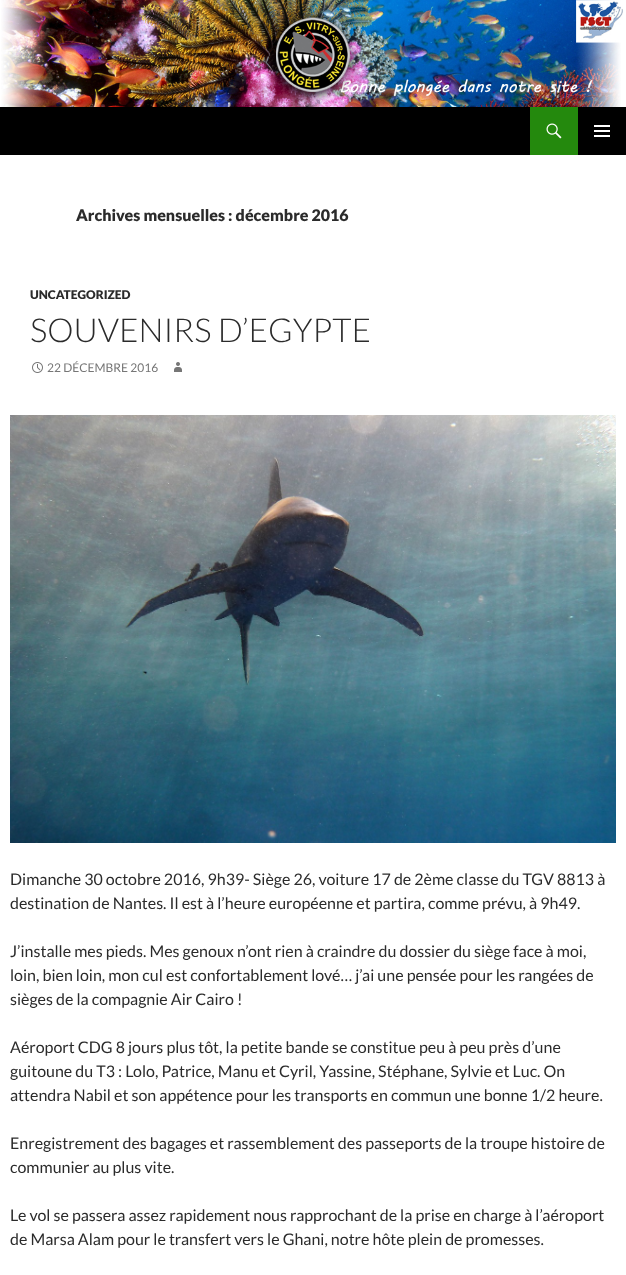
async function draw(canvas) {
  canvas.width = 626;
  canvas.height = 1275;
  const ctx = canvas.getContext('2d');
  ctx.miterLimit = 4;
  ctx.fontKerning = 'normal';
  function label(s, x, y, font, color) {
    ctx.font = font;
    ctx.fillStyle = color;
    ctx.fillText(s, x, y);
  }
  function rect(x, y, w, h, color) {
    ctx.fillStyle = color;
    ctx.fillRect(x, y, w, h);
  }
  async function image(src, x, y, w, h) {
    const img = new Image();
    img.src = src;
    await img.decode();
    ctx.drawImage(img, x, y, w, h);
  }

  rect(0, 0, 626, 1275, '#fff');
  await image('assets/img1.png', 1, 0, 622, 107);
  rect(0, 107, 626, 48, '#000');
  rect(530, 107, 48, 48, '#24890d');
  await image('assets/img2.png', 546, 123, 16, 16);
  await image('assets/img3.png', 594, 125, 16, 12);
  label('Archives mensuelles : décembre 2016', 76, 221, '900 16px Lato', '#2b2b2b');
  label('UNCATEGORIZED', 30, 299, '900 12px Lato', '#2b2b2b');
  label('SOUVENIRS D’EGYPTE', 30, 342, '300 33px Lato', '#2b2b2b');
  await image('assets/img4.png', 32, 362, 11, 11);
  label('22 DÉCEMBRE 2016', 47, 372, '12px Lato', '#767676');
  await image('assets/img5.png', 174, 362, 8, 10);
  await image('assets/img6.png', 10, 415, 606, 428);
  label('Dimanche 30 octobre 2016, 9h39- Siège 26, voiture 17 de 2ème classe du TGV 8813 à', 10, 885, '16px Lato', '#2b2b2b');
  label('destination de Nantes. Il est à l’heure européenne et partira, comme prévu, à 9h49.', 10, 909, '16px Lato', '#2b2b2b');
  label('J’installe mes pieds. Mes genoux n’ont rien à craindre du dossier du siège face à moi,', 10, 957, '16px Lato', '#2b2b2b');
  label('loin, bien loin, mon cul est confortablement lové… j’ai une pensée pour les rangées de', 10, 981, '16px Lato', '#2b2b2b');
  label('sièges de la compagnie Air Cairo !', 10, 1005, '16px Lato', '#2b2b2b');
  label('Aéroport CDG 8 jours plus tôt, la petite bande se constitue peu à peu près d’une', 10, 1053, '16px Lato', '#2b2b2b');
  label('guitoune du T3 : Lolo, Patrice, Manu et Cyril, Yassine, Stéphane, Sylvie et Luc. On', 10, 1077, '16px Lato', '#2b2b2b');
  label('attendra Nabil et son appétence pour les transports en commun une bonne 1/2 heure.', 10, 1101, '16px Lato', '#2b2b2b');
  label('Enregistrement des bagages et rassemblement des passeports de la troupe histoire de', 10, 1149, '16px Lato', '#2b2b2b');
  label('communier au plus vite.', 10, 1173, '16px Lato', '#2b2b2b');
  label('Le vol se passera assez rapidement nous rapprochant de la prise en charge à l’aéroport', 10, 1221, '16px Lato', '#2b2b2b');
  label('de Marsa Alam pour le transfert vers le Ghani, notre hôte plein de promesses.', 10, 1245, '16px Lato', '#2b2b2b');
}

draw(document.querySelector('canvas'));
